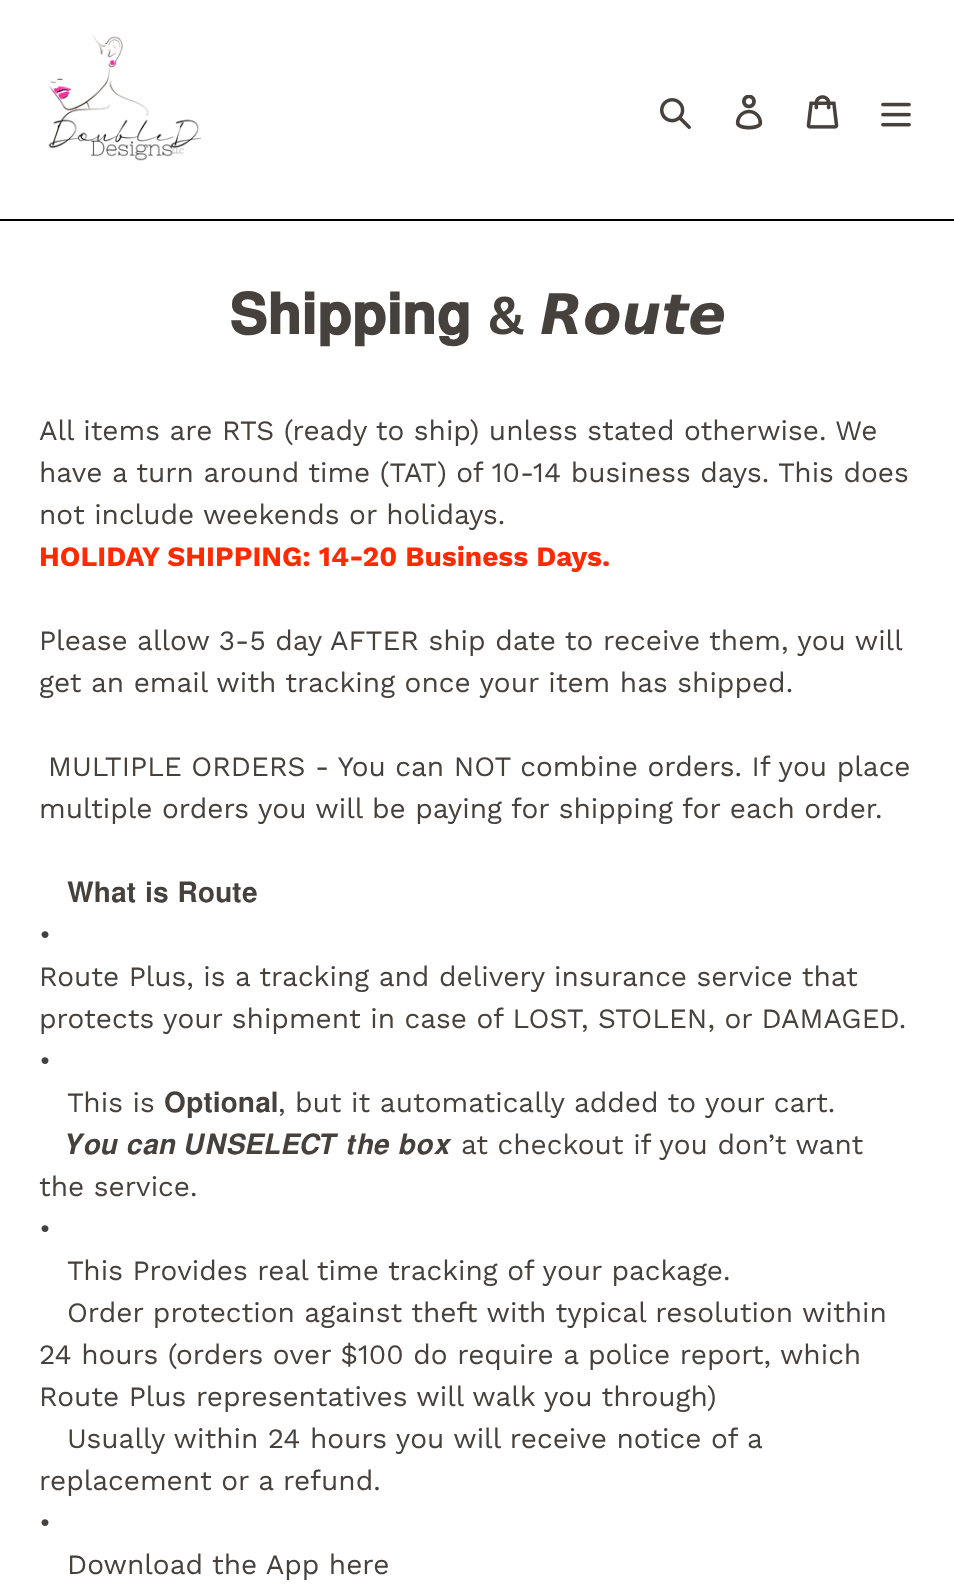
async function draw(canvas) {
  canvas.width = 954;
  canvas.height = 1588;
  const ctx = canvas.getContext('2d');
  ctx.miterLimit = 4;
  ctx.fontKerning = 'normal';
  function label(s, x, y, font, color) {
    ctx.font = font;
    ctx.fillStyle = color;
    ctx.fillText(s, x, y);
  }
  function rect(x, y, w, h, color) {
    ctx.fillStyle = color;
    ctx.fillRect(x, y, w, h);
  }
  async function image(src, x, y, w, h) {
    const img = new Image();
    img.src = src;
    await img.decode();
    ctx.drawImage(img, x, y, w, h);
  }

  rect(0, 0, 954, 1588, '#fff');
  rect(0, 219, 954, 2, '#000');
  await image('assets/img1.png', 48, 34, 153, 127);
  await image('assets/img2.png', 660, 98, 31, 31);
  await image('assets/img3.png', 735, 95, 28, 35);
  await image('assets/img4.png', 806, 95, 33, 34);
  await image('assets/img5.png', 881, 102, 30, 25);
  label('𝐒𝐡𝐢𝐩𝐩𝐢𝐧𝐠', 229, 334, 'bold 56px FreeSans', '#46413d');
  label('&', 488, 334, '600 56px Work Sans', '#46413d');
  label('𝙍𝙤𝙪𝙩𝙚', 540, 334, 'italic bold 56px DejaVu Sans', '#46413d');
  label('All items are RTS (ready to ship) unless stated otherwise. We', 39, 440, '28px Work Sans', '#46413d');
  label('have a turn around time (TAT) of 10-14 business days. This does', 39, 482, '28px Work Sans', '#46413d');
  label('not include weekends or holidays.', 39, 524, '28px Work Sans', '#46413d');
  label('HOLIDAY SHIPPING: 14-20 Business Days.', 39, 566, 'bold 28px Work Sans', '#ff2a00');
  label('Please allow 3-5 day AFTER ship date to receive them, you will', 39, 650, '28px Work Sans', '#46413d');
  label('get an email with tracking once your item has shipped.', 39, 692, '28px Work Sans', '#46413d');
  label('MULTIPLE ORDERS - You can NOT combine orders. If you place', 48, 776, '28px Work Sans', '#46413d');
  label('multiple orders you will be paying for shipping for each order.', 39, 818, '28px Work Sans', '#46413d');
  ctx.wordSpacing = '2px';
  label('𝐖𝐡𝐚𝐭 𝐢𝐬 𝐑𝐨𝐮𝐭𝐞', 67, 902, '28px FreeSans', '#46413d');
  ctx.wordSpacing = '0px';
  label('•', 39, 944, '28px Work Sans', '#46413d');
  label('Route Plus, is a tracking and delivery insurance service that', 39, 986, '28px Work Sans', '#46413d');
  label('protects your shipment in case of LOST, STOLEN, or DAMAGED.', 39, 1028, '28px Work Sans', '#46413d');
  label('•', 39, 1070, '28px Work Sans', '#46413d');
  label('This is', 67, 1112, '28px Work Sans', '#46413d');
  label('𝐎𝐩𝐭𝐢𝐨𝐧𝐚𝐥', 164, 1112, '28px FreeSans', '#46413d');
  label(', but it automatically added to your cart.', 278, 1112, '28px Work Sans', '#46413d');
  label('𝒀𝒐𝒖', 67, 1154, '28px FreeSans', '#46413d');
  label('𝒄𝒂𝒏', 127, 1154, '28px FreeSans', '#46413d');
  label('𝑼𝑵𝑺𝑬𝑳𝑬𝑪𝑻', 185, 1154, '28px FreeSans', '#46413d');
  label('𝒕𝒉𝒆', 347, 1154, '28px FreeSans', '#46413d');
  label('𝒃𝒐𝒙', 399, 1154, '28px FreeSans', '#46413d');
  label('at checkout if you don’t want', 461, 1154, '28px Work Sans', '#46413d');
  label('the service.', 39, 1196, '28px Work Sans', '#46413d');
  label('•', 39, 1238, '28px Work Sans', '#46413d');
  label('This Provides real time tracking of your package.', 67, 1280, '28px Work Sans', '#46413d');
  label('Order protection against theft with typical resolution within', 67, 1322, '28px Work Sans', '#46413d');
  label('24 hours (orders over $100 do require a police report, which', 39, 1364, '28px Work Sans', '#46413d');
  label('Route Plus representatives will walk you through)', 39, 1406, '28px Work Sans', '#46413d');
  label('Usually within 24 hours you will receive notice of a', 67, 1448, '28px Work Sans', '#46413d');
  label('replacement or a refund.', 39, 1490, '28px Work Sans', '#46413d');
  label('•', 39, 1532, '28px Work Sans', '#46413d');
  label('Download the App here', 67, 1574, '28px Work Sans', '#46413d');
}

draw(document.querySelector('canvas'));
